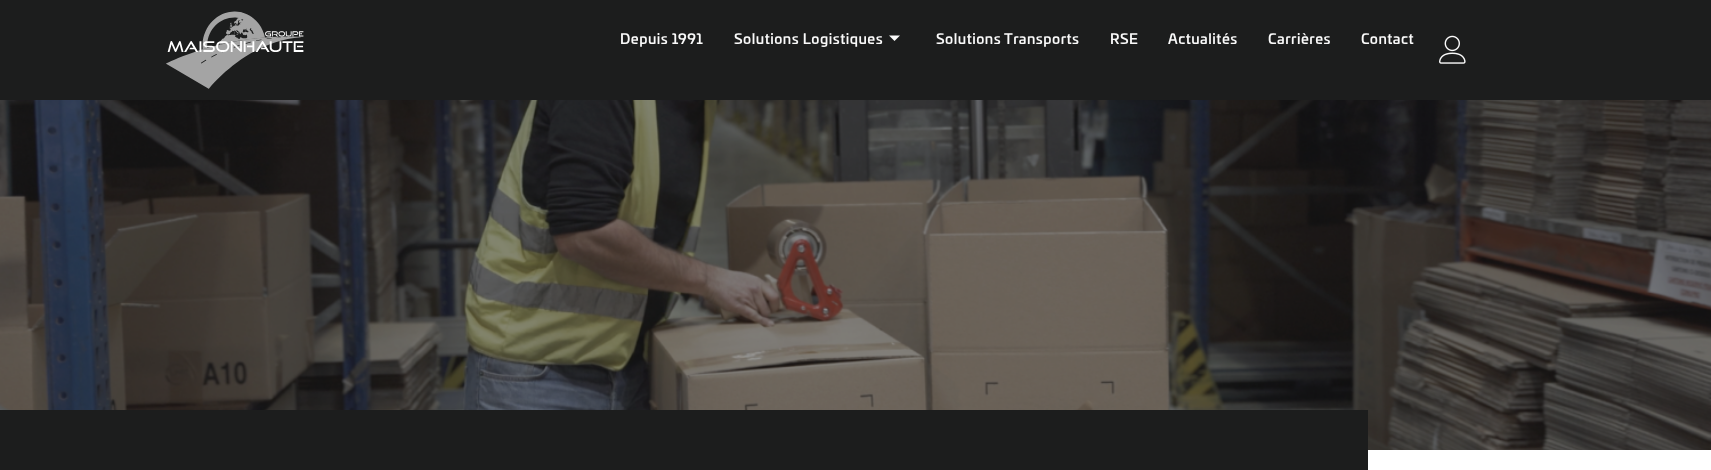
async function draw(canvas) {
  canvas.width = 1711;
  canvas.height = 470;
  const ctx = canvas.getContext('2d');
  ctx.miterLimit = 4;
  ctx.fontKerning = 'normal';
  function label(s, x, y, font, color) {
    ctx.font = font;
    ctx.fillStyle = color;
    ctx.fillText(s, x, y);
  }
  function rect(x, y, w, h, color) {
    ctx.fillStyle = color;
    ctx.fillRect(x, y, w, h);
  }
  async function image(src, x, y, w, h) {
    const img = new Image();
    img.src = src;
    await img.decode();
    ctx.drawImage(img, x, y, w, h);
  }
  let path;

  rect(0, 0, 1711, 470, '#fff');
  rect(0, 0, 1711, 100, '#1c1d1d');
  await image('assets/img1.png', 166, 11, 138, 78);
  ctx.letterSpacing = '0.5px';
  label('Depuis 1991', 620, 44, '500 14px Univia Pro', '#fafafa');
  label('Solutions Logistiques', 734, 44, '500 14px Univia Pro', '#fafafa');
  path = new Path2D('M889 35.5H900L894.5 41Z');
  ctx.fill(path);
  label('Solutions Transports', 936, 44, '500 14px Univia Pro', '#fafafa');
  label('RSE', 1110, 44, '500 14px Univia Pro', '#fafafa');
  label('Actualités', 1168, 44, '500 14px Univia Pro', '#fafafa');
  label('Carrières', 1268, 44, '500 14px Univia Pro', '#fafafa');
  label('Contact', 1361, 44, '500 14px Univia Pro', '#fafafa');
  await image('assets/img2.png', 1439, 35, 27, 29);
  await image('assets/img3.png', 0, 100, 1711, 350);
  rect(0, 410, 1368, 60, '#1c1d1d');
}

draw(document.querySelector('canvas'));
